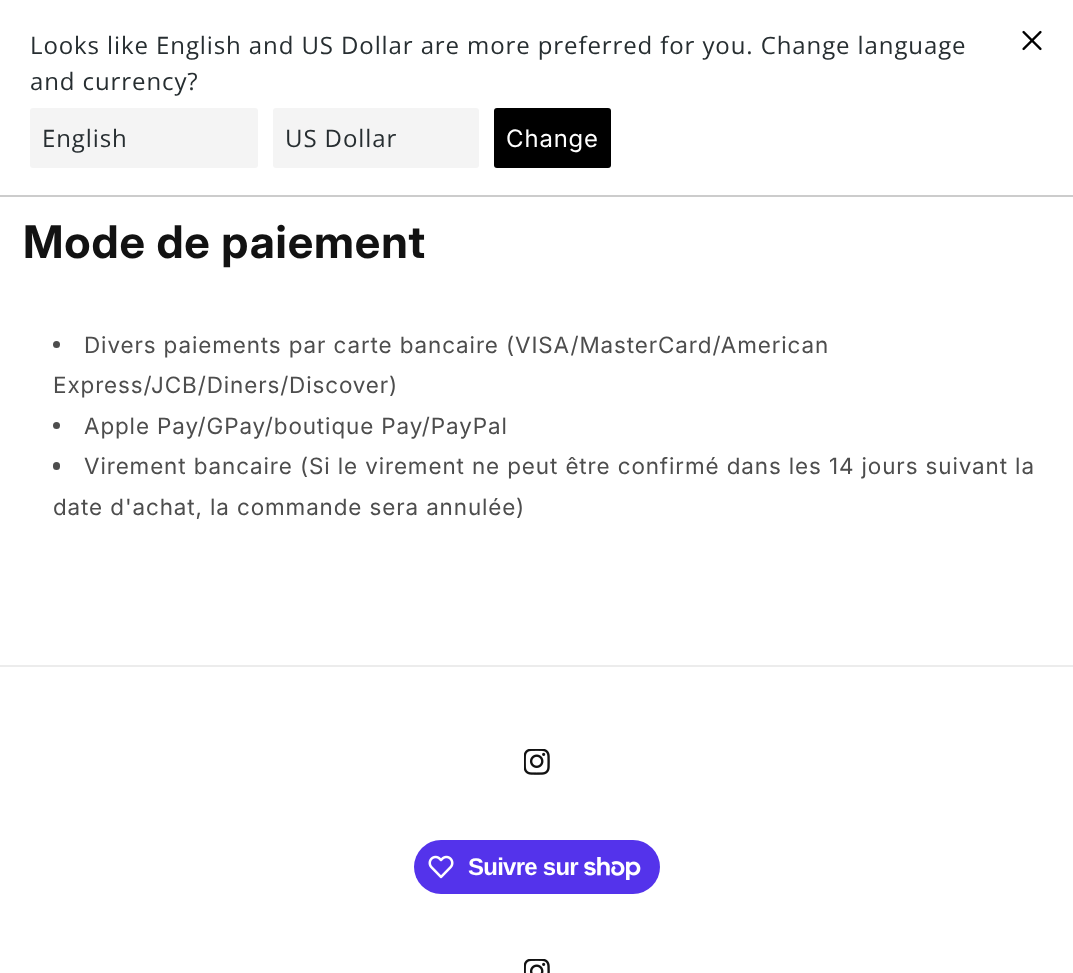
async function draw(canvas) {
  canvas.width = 1073;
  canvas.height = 973;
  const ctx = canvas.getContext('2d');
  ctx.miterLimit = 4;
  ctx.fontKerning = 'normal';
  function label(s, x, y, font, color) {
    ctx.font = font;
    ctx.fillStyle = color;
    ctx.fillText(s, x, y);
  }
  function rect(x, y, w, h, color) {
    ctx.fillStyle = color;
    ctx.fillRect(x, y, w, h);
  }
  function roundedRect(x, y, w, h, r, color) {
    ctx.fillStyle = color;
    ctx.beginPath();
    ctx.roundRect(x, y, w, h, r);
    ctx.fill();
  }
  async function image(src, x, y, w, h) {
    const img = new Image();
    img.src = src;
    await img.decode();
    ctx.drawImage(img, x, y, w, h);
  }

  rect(0, 0, 1073, 973, '#fff');
  rect(0, 195, 1073, 2, '#ccc');
  ctx.letterSpacing = '0.9px';
  label('Looks like English and US Dollar are more preferred for you. Change language', 30, 54, '24px Open Sans', '#272e31');
  label('and currency?', 30, 90, '24px Open Sans', '#272e31');
  roundedRect(30, 108, 228, 60, 3, '#f4f4f4');
  label('English', 42, 147, '24px Open Sans', '#272e31');
  roundedRect(273, 108, 206, 60, 3, '#f4f4f4');
  label('US Dollar', 285, 147, '24px Open Sans', '#272e31');
  roundedRect(494, 108, 117, 60, 3, '#000');
  label('Change', 506, 147, '24px "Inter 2"', '#fff');
  await image('assets/img1.png', 1022, 30, 20, 21);
  label('Mode de paiement', 23, 258, 'bold 45px Inter', '#121212');
  ctx.fillStyle = '#4d4d4d';
  ctx.beginPath();
  ctx.arc(56.5, 344.5, 3.5, 0, 2 * Math.PI);
  ctx.fill();
  label('Divers paiements par carte bancaire (VISA/MasterCard/American', 84, 353, '22.5px Inter', '#4d4d4d');
  label('Express/JCB/Diners/Discover)', 53, 393, '22.5px Inter', '#4d4d4d');
  ctx.beginPath();
  ctx.arc(56.5, 425.5, 3.5, 0, 2 * Math.PI);
  ctx.fill();
  label('Apple Pay/GPay/boutique Pay/PayPal', 84, 434, '22.5px Inter', '#4d4d4d');
  roundedRect(53, 462, 7, 8, 3.5, '#4d4d4d');
  label('Virement bancaire (Si le virement ne peut être confirmé dans les 14 jours suivant la', 84, 474, '22.5px Inter', '#4d4d4d');
  label('date d\'achat, la commande sera annulée)', 53, 515, '22.5px Inter', '#4d4d4d');
  rect(0, 665, 1073, 2, '#ececec');
  await image('assets/img2.png', 524, 749, 26, 26);
  roundedRect(414, 840, 246, 54, 27, '#5433eb');
  await image('assets/img3.png', 428, 855, 26, 24);
  ctx.letterSpacing = '-0.75px';
  label('Suivre sur', 468, 875, 'bold 24px Liberation Sans', '#fff');
  await image('assets/img4.png', 584, 857, 57, 23);
  await image('assets/img5.png', 524, 959, 26, 14);
}

draw(document.querySelector('canvas'));
